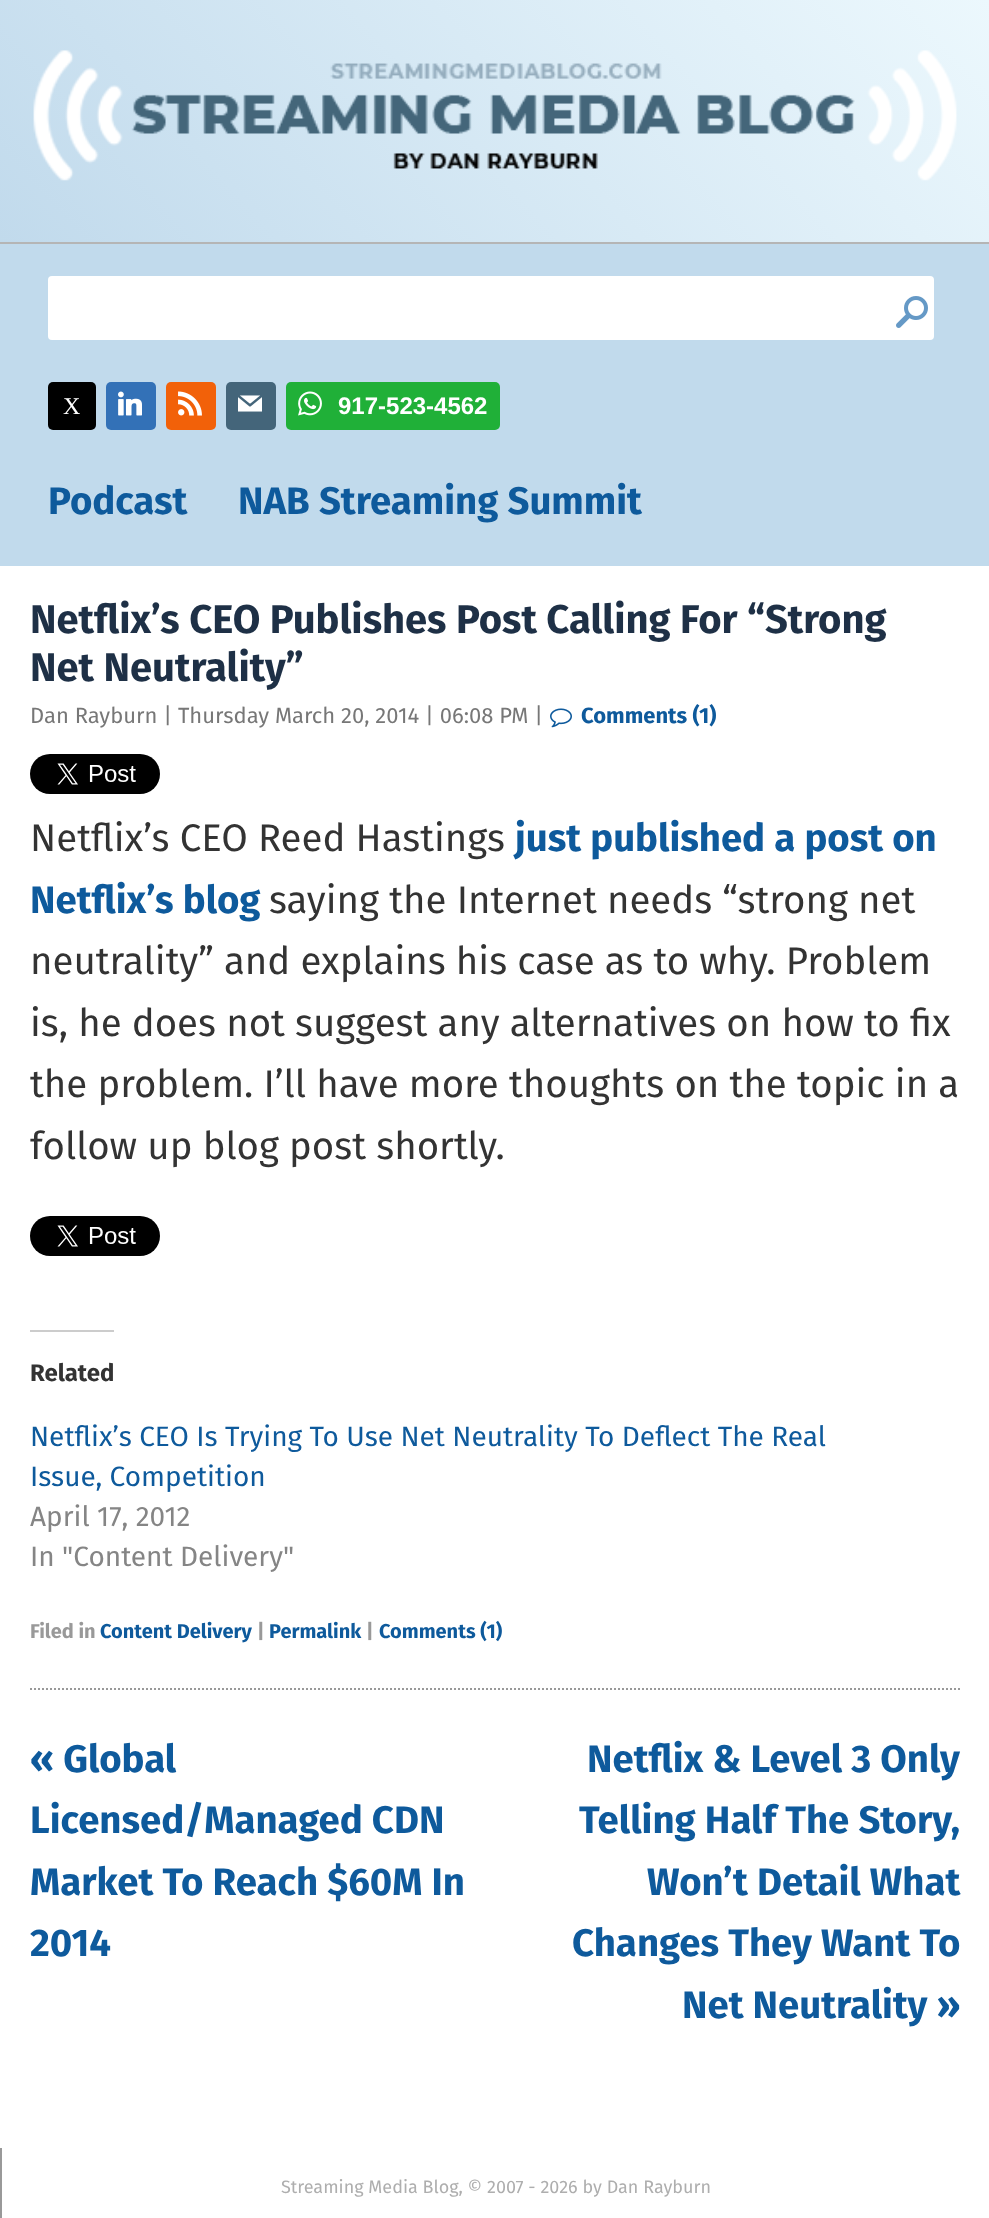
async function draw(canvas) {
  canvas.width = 989;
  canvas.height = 2218;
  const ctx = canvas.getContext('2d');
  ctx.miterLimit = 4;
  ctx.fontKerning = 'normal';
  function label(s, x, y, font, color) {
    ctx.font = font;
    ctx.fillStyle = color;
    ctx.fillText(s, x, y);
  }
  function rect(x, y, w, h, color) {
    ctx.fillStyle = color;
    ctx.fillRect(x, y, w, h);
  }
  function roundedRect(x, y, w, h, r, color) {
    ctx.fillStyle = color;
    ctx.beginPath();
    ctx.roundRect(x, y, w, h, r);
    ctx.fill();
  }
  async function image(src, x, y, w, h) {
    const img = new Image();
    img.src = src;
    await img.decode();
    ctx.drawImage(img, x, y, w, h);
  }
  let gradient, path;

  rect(0, 0, 989, 2218, '#c1daec');
  gradient = ctx.createLinearGradient(829, -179, 161, 421);
  gradient.addColorStop(0, '#ecf8fd');
  gradient.addColorStop(1, '#c1daec');
  ctx.fillStyle = gradient;
  ctx.fillRect(0, 0, 989, 242);
  rect(0, 242, 989, 2, '#b5b5b5');
  await image('assets/img1.png', 33, 50, 924, 131);
  roundedRect(48, 276, 886, 64, 4, '#fff');
  await image('assets/img2.png', 896, 296, 32, 32);
  roundedRect(48, 382, 48, 48, 5, '#000');
  label('X', 63, 414, '24px Liberation Serif', '#fff');
  roundedRect(106, 382, 50, 48, 5, '#3371b7');
  await image('assets/img3.png', 118, 391, 24, 25);
  roundedRect(166, 382, 50, 48, 5, '#f26109');
  await image('assets/img4.png', 178, 391, 24, 25);
  roundedRect(226, 382, 50, 48, 5, '#44657a');
  await image('assets/img5.png', 238, 395, 24, 17);
  roundedRect(286, 382, 214, 48, 5, '#20b038');
  await image('assets/img6.png', 298, 391, 24, 25);
  label('917-523-4562', 338, 414, 'bold 24px Liberation Sans', '#fff');
  label('Podcast', 48, 514, 'bold 38.4px Fira Sans', '#0e5a9c');
  label('NAB Streaming Summit', 238, 514, 'bold 38.4px Fira Sans', '#0e5a9c');
  rect(0, 566, 989, 1652, '#fff');
  path = new Path2D('M30 1689H960');
  ctx.strokeStyle = '#999';
  ctx.lineWidth = 2;
  ctx.setLineDash([2, 2]);
  ctx.stroke(path);
  label('Netflix’s CEO Publishes Post Calling For “Strong', 30, 633, 'bold 40px Fira Sans', '#1e3046');
  label('Net Neutrality”', 30, 681, 'bold 40px Fira Sans', '#1e3046');
  label('Dan Rayburn | Thursday March 20, 2014 | 06:08 PM |', 30, 723, '22px Fira Sans', '#777');
  await image('assets/img7.png', 550, 708, 22, 20);
  label('Comments (1)', 581, 723, 'bold 22px Fira Sans', '#0e5a9c');
  await image('assets/img8.png', 30, 754, 130, 40);
  label('Netflix’s CEO Reed Hastings', 30, 851, '38.4px Fira Sans', '#333');
  label('just published a post on', 515, 851, 'bold 38.4px Fira Sans', '#0e5a9c');
  label('Netflix’s blog', 30, 913, 'bold 38.4px Fira Sans', '#0e5a9c');
  label('saying the Internet needs “strong net', 269, 913, '38.4px Fira Sans', '#333');
  label('neutrality” and explains his case as to why. Problem', 30, 974, '38.4px Fira Sans', '#333');
  label('is, he does not suggest any alternatives on how to fix', 30, 1036, '38.4px Fira Sans', '#333');
  label('the problem. I’ll have more thoughts on the topic in a', 30, 1097, '38.4px Fira Sans', '#333');
  label('follow up blog post shortly.', 30, 1159, '38.4px Fira Sans', '#333');
  await image('assets/img9.png', 30, 1216, 130, 40);
  rect(30, 1330, 84, 2, '#ccc');
  label('Related', 30, 1381, 'bold 24px Fira Sans', '#333');
  label('Netflix’s CEO Is Trying To Use Net Neutrality To Deflect The Real', 30, 1446, '28px Fira Sans', '#0e5a9c');
  label('Issue, Competition', 30, 1486, '28px Fira Sans', '#0e5a9c');
  label('April 17, 2012', 30, 1526, '28px Fira Sans', '#858585');
  label('In "Content Delivery"', 30, 1566, '28px Fira Sans', '#858585');
  label('Filed in', 30, 1638, 'bold 20px Fira Sans', '#999');
  label('Content Delivery', 100, 1638, 'bold 20px Fira Sans', '#0e5a9c');
  label('|', 257, 1638, 'bold 20px Fira Sans', '#999');
  label('Permalink', 269, 1638, 'bold 20px Fira Sans', '#0e5a9c');
  label('|', 366, 1638, 'bold 20px Fira Sans', '#999');
  label('Comments (1)', 379, 1638, 'bold 20px Fira Sans', '#0e5a9c');
  label('« Global', 30, 1772, 'bold 38.4px Fira Sans', '#0e5a9c');
  label('Licensed/Managed CDN', 30, 1833, 'bold 38.4px Fira Sans', '#0e5a9c');
  label('Market To Reach $60M In', 30, 1895, 'bold 38.4px Fira Sans', '#0e5a9c');
  label('2014', 30, 1956, 'bold 38.4px Fira Sans', '#0e5a9c');
  label('Netflix & Level 3 Only', 587, 1772, 'bold 38.4px Fira Sans', '#0e5a9c');
  label('Telling Half The Story,', 579, 1833, 'bold 38.4px Fira Sans', '#0e5a9c');
  label('Won’t Detail What', 647, 1895, 'bold 38.4px Fira Sans', '#0e5a9c');
  label('Changes They Want To', 572, 1956, 'bold 38.4px Fira Sans', '#0e5a9c');
  label('Net Neutrality »', 682, 2018, 'bold 38.4px Fira Sans', '#0e5a9c');
  rect(0, 2148, 2, 70, '#999');
  label('Streaming Media Blog, © 2007 - 2026 by Dan Rayburn', 281, 2193, '18px Fira Sans', '#aeaeae');
}

draw(document.querySelector('canvas'));
